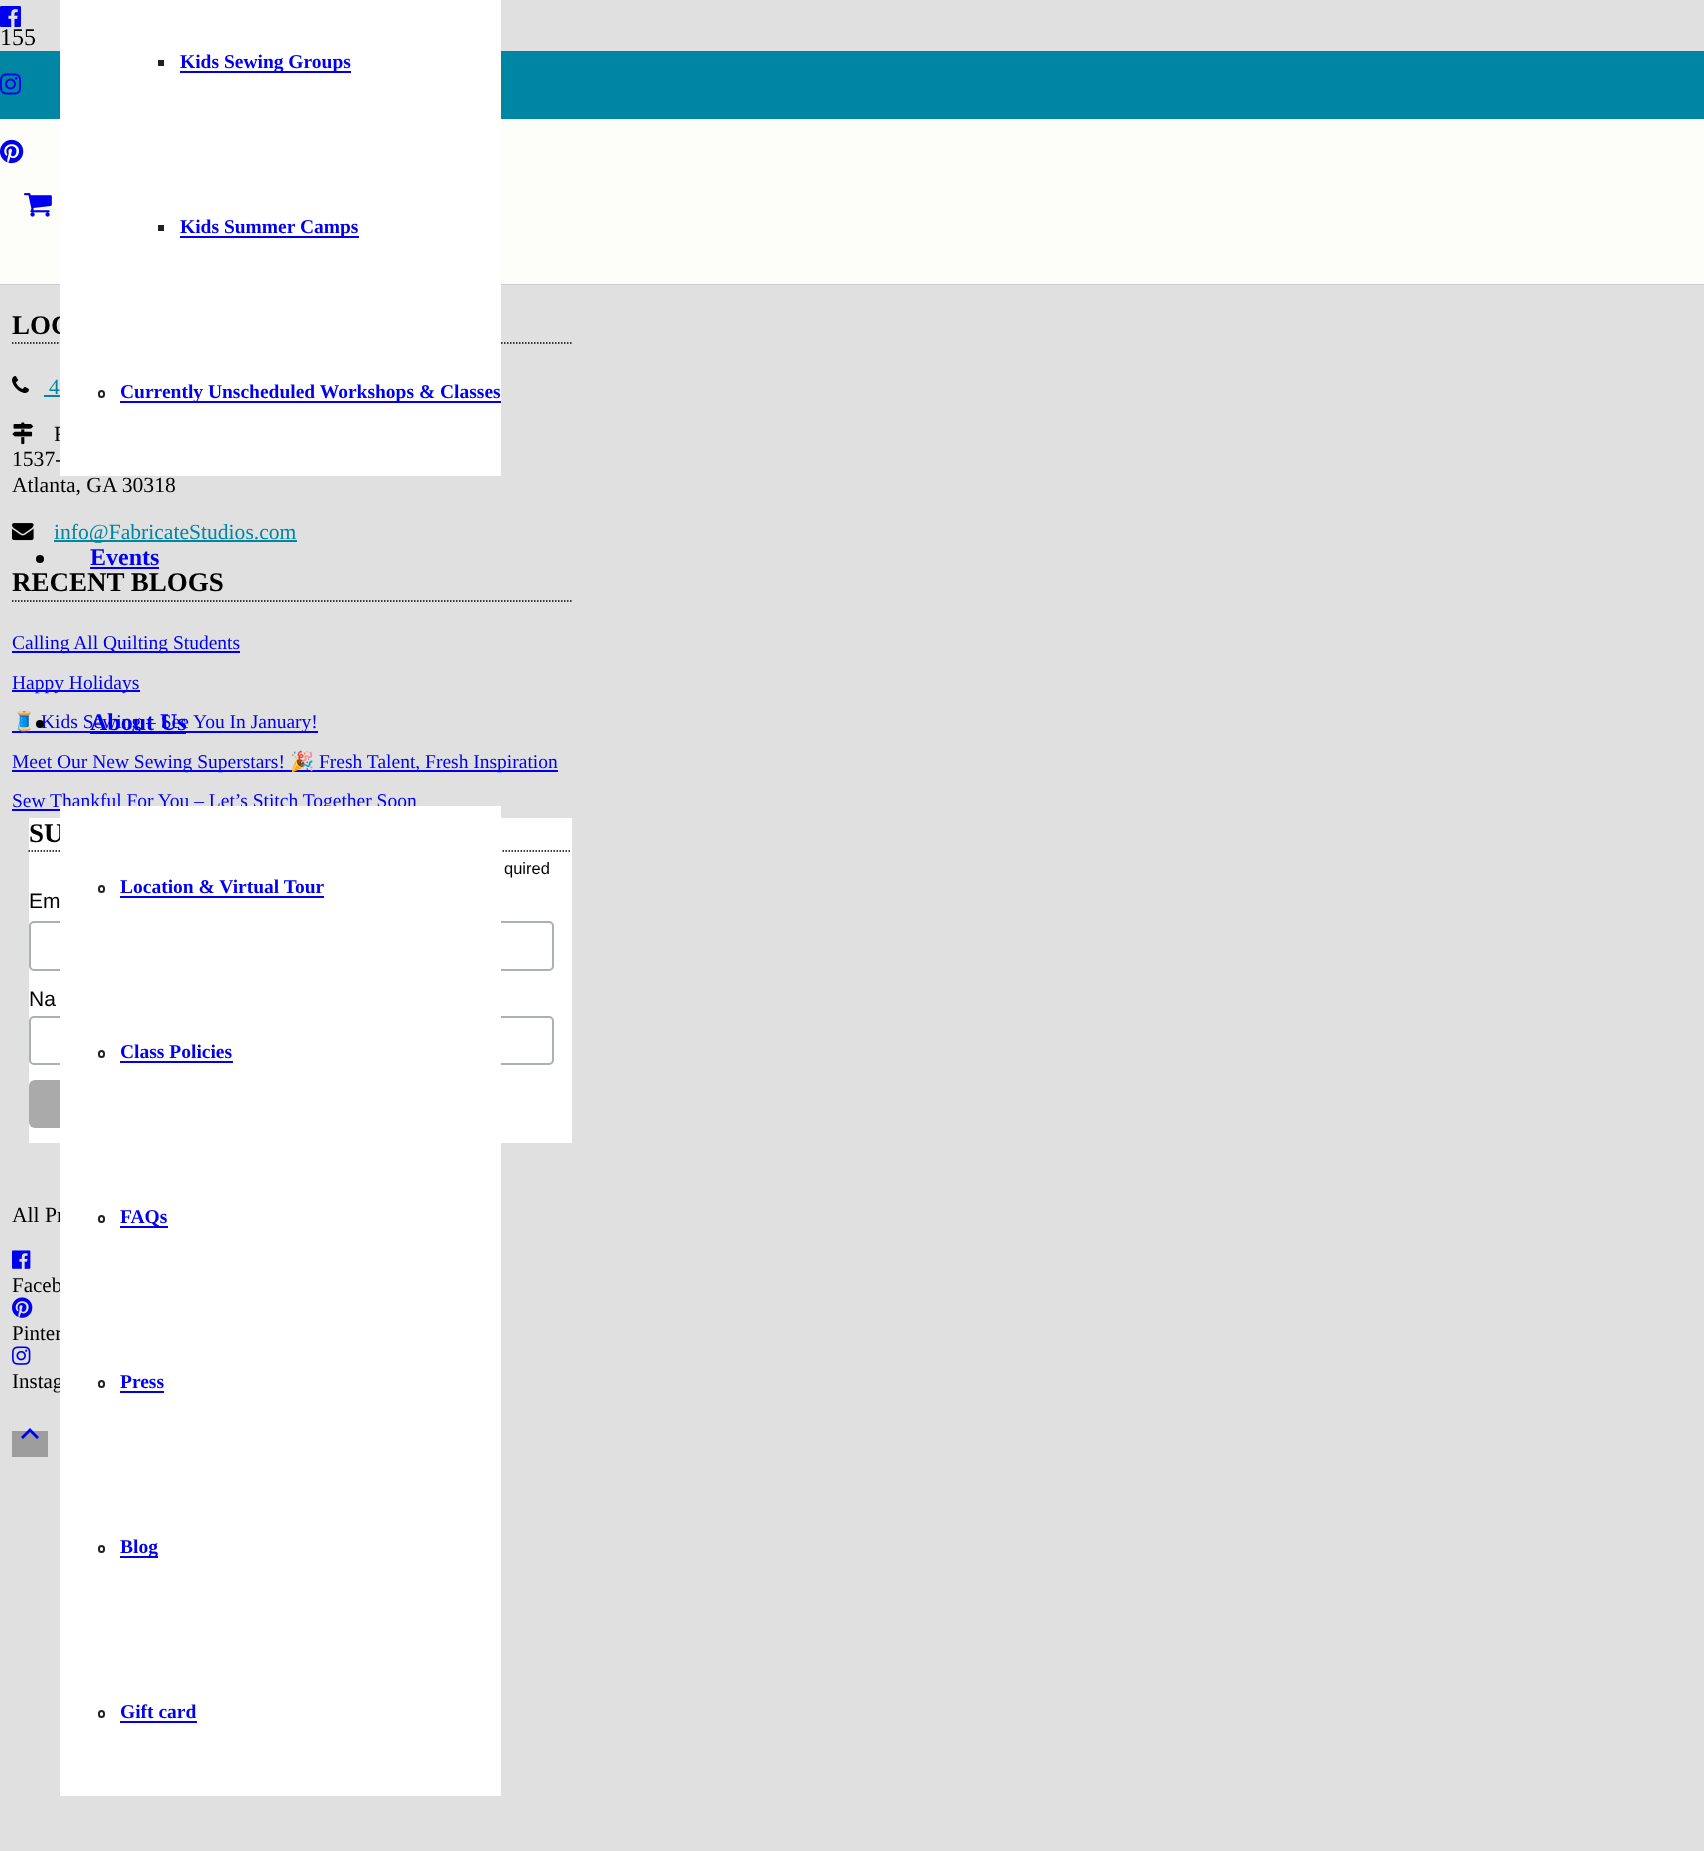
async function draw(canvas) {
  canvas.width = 1704;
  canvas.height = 1851;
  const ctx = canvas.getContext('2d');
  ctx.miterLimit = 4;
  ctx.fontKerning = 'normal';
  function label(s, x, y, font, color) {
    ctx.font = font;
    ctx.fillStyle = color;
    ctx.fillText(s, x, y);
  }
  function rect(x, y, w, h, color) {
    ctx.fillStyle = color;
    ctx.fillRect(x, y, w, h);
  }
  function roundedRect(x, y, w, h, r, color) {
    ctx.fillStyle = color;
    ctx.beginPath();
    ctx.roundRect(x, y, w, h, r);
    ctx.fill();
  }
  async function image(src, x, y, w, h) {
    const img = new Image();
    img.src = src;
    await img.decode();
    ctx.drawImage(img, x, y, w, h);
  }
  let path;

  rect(0, 0, 1704, 1851, '#e0e0e0');
  rect(0, 51, 1704, 68, '#0085a2');
  await image('assets/img1.png', 0, 6, 21, 21);
  await image('assets/img2.png', 0, 73, 22, 22);
  rect(0, 119, 1704, 165, '#fdfdf9');
  await image('assets/img3.png', 0, 139, 24, 25);
  await image('assets/img4.png', 24, 193, 28, 24);
  label('155', 0, 45, '24px Liberation Serif', '#000');
  rect(0, 284, 1704, 1, '#00000014');
  path = new Path2D('M12 343H571.5');
  ctx.strokeStyle = '#000';
  ctx.lineWidth = 1.5;
  ctx.setLineDash([1.5, 1.5]);
  ctx.stroke(path);
  label('LOC', 12, 334, 'bold 27px Liberation Serif', '#000');
  label('F', 54, 441, '21.6px Liberation Serif', '#000');
  label('1537-', 12, 466, '21.6px Liberation Serif', '#000');
  rect(60, 0, 441, 476, '#fff');
  rect(158, 60, 6, 6, '#212121');
  rect(180, 71, 171, 2, '#00e');
  label('Kids Sewing Groups', 180, 68, 'bold 19.5px Liberation Serif', '#00e');
  rect(158, 225, 6, 6, '#212121');
  rect(180, 236, 179, 2, '#00e');
  label('Kids Summer Camps', 180, 233, 'bold 19.5px Liberation Serif', '#00e');
  ctx.beginPath();
  ctx.roundRect(99, 391, 5, 6, 2.5);
  ctx.strokeStyle = '#212121';
  ctx.lineWidth = 2;
  ctx.setLineDash([]);
  ctx.stroke();
  rect(120, 401, 381, 2, '#00e');
  label('Currently Unscheduled Workshops & Classes', 120, 398, 'bold 19.5px Liberation Serif', '#00e');
  ctx.fillStyle = '#000';
  ctx.beginPath();
  ctx.arc(40, 559, 4, 0, 2 * Math.PI);
  ctx.fill();
  label('Events', 90, 565, 'bold 24px Liberation Serif', '#00e');
  rect(90, 567, 69, 2, '#00e');
  rect(12, 731, 306, 2, '#00e');
  label('Kids Sewing – See You In January!', 41, 728, '19.5px Liberation Serif', '#00e');
  ctx.fillStyle = '#000';
  ctx.beginPath();
  ctx.arc(40, 724, 4, 0, 2 * Math.PI);
  ctx.fill();
  label('About Us', 90, 730, 'bold 24px Liberation Serif', '#00e');
  rect(90, 733, 96, 1, '#00e');
  rect(12, 809, 48, 2, '#00e');
  label('Sew Thankful For You – Let’s Stitch Together Soon', 12, 807, '19.5px Liberation Serif', '#00e');
  rect(29, 818, 543, 325, '#fff');
  path = new Path2D('M28.5 851H571.5');
  ctx.strokeStyle = '#000';
  ctx.lineWidth = 1.5;
  ctx.setLineDash([1.5, 1.5]);
  ctx.stroke(path);
  label('SU', 29, 842, 'bold 27px Liberation Serif', '#000');
  ctx.beginPath();
  ctx.roundRect(30, 922, 523, 48, 4);
  ctx.strokeStyle = '#abb0b2';
  ctx.lineWidth = 2;
  ctx.setLineDash([]);
  ctx.stroke();
  ctx.beginPath();
  ctx.roundRect(30, 1017, 523, 47, 4);
  ctx.stroke();
  roundedRect(29, 1080, 189, 48, 6, '#aaa');
  label('All Pr', 12, 1222, '21.6px Liberation Serif', '#000');
  label('Faceb', 12, 1292, '21px Liberation Serif', '#000');
  label('Pinter', 12, 1340, '21px Liberation Serif', '#000');
  label('Instag', 12, 1388, '21px Liberation Serif', '#000');
  rect(60, 806, 441, 990, '#fff');
  ctx.beginPath();
  ctx.roundRect(99, 886, 5, 6, 2.5);
  ctx.strokeStyle = '#212121';
  ctx.stroke();
  label('Location & Virtual Tour', 120, 893, 'bold 19.5px Liberation Serif', '#00e');
  rect(120, 896, 204, 2, '#00e');
  ctx.beginPath();
  ctx.roundRect(99, 1051, 5, 6, 2.5);
  ctx.stroke();
  label('Class Policies', 120, 1058, 'bold 19.5px Liberation Serif', '#00e');
  rect(120, 1061, 113, 2, '#00e');
  ctx.beginPath();
  ctx.roundRect(99, 1216, 5, 6, 2.5);
  ctx.stroke();
  rect(120, 1226, 48, 2, '#00e');
  label('FAQs', 120, 1223, 'bold 19.5px Liberation Serif', '#00e');
  ctx.beginPath();
  ctx.roundRect(99, 1381, 5, 6, 2.5);
  ctx.stroke();
  label('Press', 120, 1388, 'bold 19.5px Liberation Serif', '#00e');
  rect(120, 1391, 44, 2, '#00e');
  ctx.beginPath();
  ctx.roundRect(99, 1546, 5, 6, 2.5);
  ctx.stroke();
  rect(120, 1556, 38, 2, '#00e');
  label('Blog', 120, 1553, 'bold 19.5px Liberation Serif', '#00e');
  ctx.beginPath();
  ctx.roundRect(99, 1711, 5, 6, 2.5);
  ctx.stroke();
  label('Gift card', 120, 1718, 'bold 19.5px Liberation Serif', '#00e');
  rect(120, 1721, 77, 2, '#00e');
  await image('assets/img5.png', 12, 376, 17, 17);
  label('4', 49, 394, '21.6px Liberation Serif', '#0085a2');
  rect(44, 395, 16, 2, '#0085a2');
  await image('assets/img6.png', 12, 422, 22, 23);
  label('Atlanta, GA 30318', 12, 492, '21.6px Liberation Serif', '#000');
  await image('assets/img7.png', 12, 523, 22, 18);
  rect(54, 540, 243, 2, '#0085a2');
  label('info@FabricateStudios.com', 54, 539, '21.6px Liberation Serif', '#0085a2');
  path = new Path2D('M12 601H571.5');
  ctx.strokeStyle = '#000';
  ctx.lineWidth = 1.5;
  ctx.setLineDash([1.5, 1.5]);
  ctx.stroke(path);
  label('RECENT BLOGS', 12, 591, 'bold 27px Liberation Serif', '#000');
  rect(12, 651, 228, 2, '#00e');
  label('Calling All Quilting Students', 12, 649, '19.5px Liberation Serif', '#00e');
  rect(12, 690, 128, 2, '#00e');
  label('Happy Holidays', 12, 689, '19.5px Liberation Serif', '#00e');
  label('🧵', 12, 728, '19.5px Noto Color Emoji', '#00e');
  rect(12, 770, 546, 2, '#00e');
  label('Meet Our New Sewing Superstars!', 12, 768, '19.5px Liberation Serif', '#00e');
  label('🎉', 290, 768, '19.5px Noto Color Emoji', '#00e');
  label('Fresh Talent, Fresh Inspiration', 319, 768, '19.5px Liberation Serif', '#00e');
  label('quired', 504, 874, '16.5px Liberation Sans', '#000');
  label('Em', 29, 908, '21px Liberation Sans', '#000');
  label('Na', 29, 1006, '21px Liberation Sans', '#000');
  await image('assets/img8.png', 12, 1250, 19, 19);
  await image('assets/img9.png', 12, 1297, 21, 21);
  await image('assets/img10.png', 12, 1346, 19, 19);
  rect(12, 1431, 36, 26, '#9d9d9d');
  ctx.fillStyle = '#00e';
  path = new Path2D('M23 1439L21 1437L30 1428L39 1437L37 1439L30 1432Z');
  ctx.fill(path);
}

draw(document.querySelector('canvas'));
